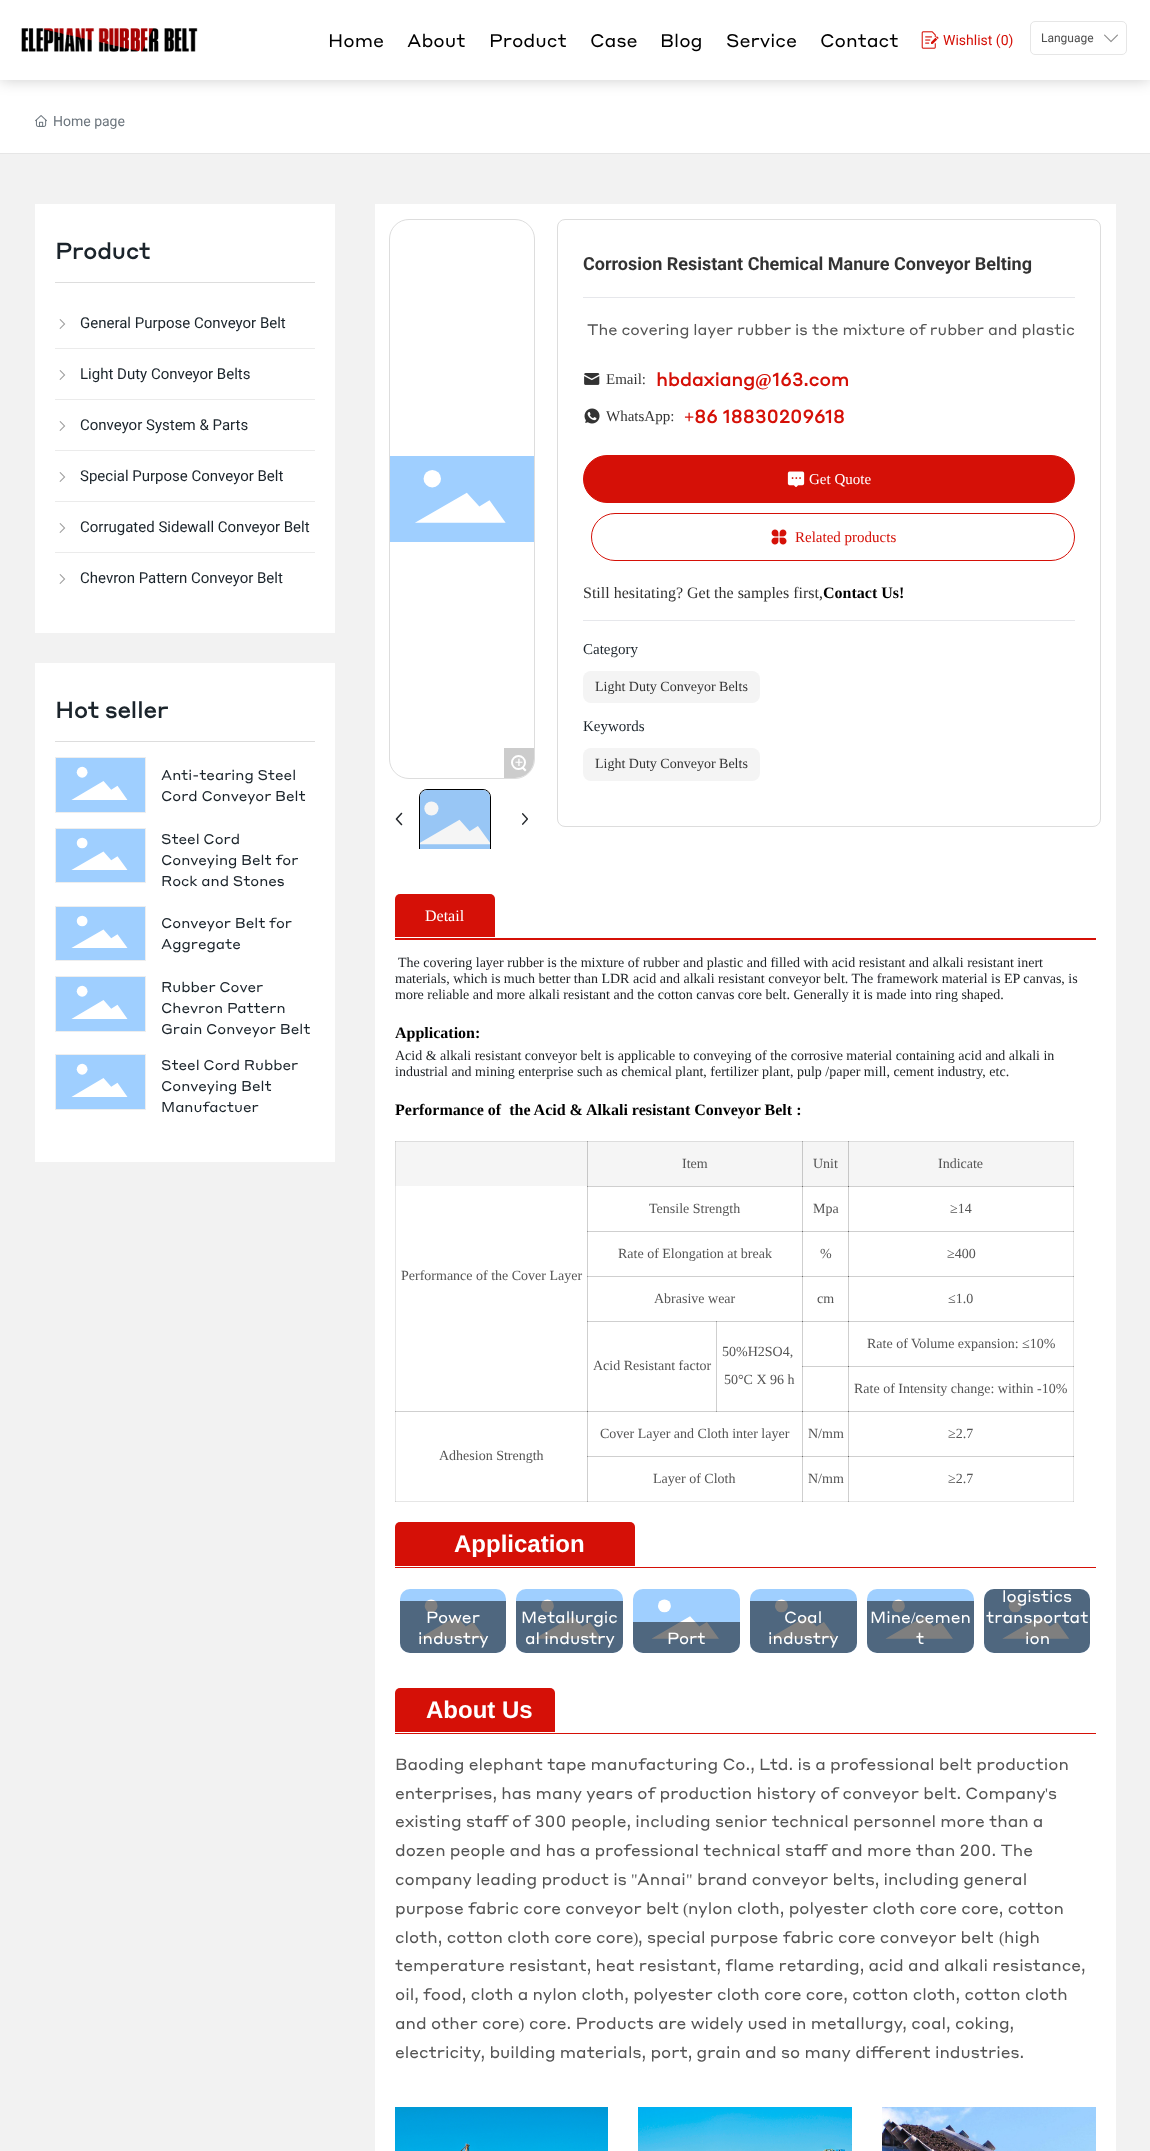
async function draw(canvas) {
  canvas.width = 1150;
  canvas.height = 2151;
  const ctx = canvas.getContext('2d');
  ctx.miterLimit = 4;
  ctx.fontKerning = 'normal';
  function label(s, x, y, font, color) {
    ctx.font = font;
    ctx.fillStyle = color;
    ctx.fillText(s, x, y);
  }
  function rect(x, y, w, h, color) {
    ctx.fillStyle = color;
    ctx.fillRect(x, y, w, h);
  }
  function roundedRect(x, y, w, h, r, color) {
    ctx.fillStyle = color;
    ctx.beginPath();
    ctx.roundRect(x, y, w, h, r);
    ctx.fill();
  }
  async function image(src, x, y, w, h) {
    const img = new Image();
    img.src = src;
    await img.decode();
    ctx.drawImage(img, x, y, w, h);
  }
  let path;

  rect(0, 0, 1150, 2151, '#fff');
  ctx.fillStyle = '#00000033';
  ctx.filter = 'blur(7.5px)';
  ctx.beginPath();
  ctx.rect(0, 0, 1150, 80);
  ctx.fill();
  ctx.filter = 'none';
  rect(0, 0, 1150, 80, '#fff');
  await image('assets/img1.png', 21, 28, 177, 24);
  label('Home', 328, 47, '18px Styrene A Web', '#000');
  label('About', 407, 47, '18px Styrene A Web', '#000');
  label('Product', 489, 47, '18px Styrene A Web', '#000');
  label('Case', 590, 47, '18px Styrene A Web', '#000');
  label('Blog', 660, 47, '18px Styrene A Web', '#000');
  label('Service', 726, 47, '18px Styrene A Web', '#000');
  label('Contact', 820, 47, '18px Styrene A Web', '#000');
  await image('assets/img2.png', 921, 31, 18, 18);
  label('Wishlist (0)', 943, 45, '14px Roboto', '#d51007');
  ctx.beginPath();
  ctx.roundRect(1030.5, 21.5, 96, 33, 4.5);
  ctx.strokeStyle = '#e6e6e6';
  ctx.stroke();
  label('Language', 1041, 42, '12px Roboto', '#4d4d4d');
  await image('assets/img3.png', 1104, 34, 14, 9);
  rect(0, 153, 1150, 1, '#e6e6e6');
  await image('assets/img4.png', 35, 115, 12, 12);
  label('Home page', 53, 126, '14px Roboto', '#6c757d');
  rect(0, 154, 1150, 1997, '#f2f2f2');
  rect(35, 204, 300, 429, '#fff');
  label('Product', 55, 259, 'bold 22px Styrene A Web', '#1b242b');
  rect(55, 282, 260, 1, '#ddd');
  rect(55, 348, 260, 1, '#ebebeb');
  await image('assets/img5.png', 59, 319, 7, 10);
  label('General Purpose Conveyor Belt', 80, 328, '15px Roboto', '#1b242b');
  rect(55, 399, 260, 1, '#ebebeb');
  await image('assets/img5.png', 59, 370, 7, 10);
  label('Light Duty Conveyor Belts', 80, 379, '15px Roboto', '#1b242b');
  rect(55, 450, 260, 1, '#ebebeb');
  await image('assets/img5.png', 59, 421, 7, 10);
  label('Conveyor System & Parts', 80, 430, '15px Roboto', '#1b242b');
  rect(55, 501, 260, 1, '#ebebeb');
  await image('assets/img5.png', 59, 472, 7, 10);
  label('Special Purpose Conveyor Belt', 80, 481, '15px Roboto', '#1b242b');
  rect(55, 552, 260, 1, '#ebebeb');
  await image('assets/img5.png', 59, 523, 7, 10);
  label('Corrugated Sidewall Conveyor Belt', 80, 532, '15px Roboto', '#1b242b');
  await image('assets/img5.png', 59, 574, 7, 10);
  label('Chevron Pattern Conveyor Belt', 80, 583, '15px Roboto', '#1b242b');
  rect(35, 663, 300, 499, '#fff');
  label('Hot seller', 55, 718, 'bold 22px Styrene A Web', '#1b242b');
  rect(55, 741, 260, 1, '#ddd');
  ctx.strokeStyle = '#eee';
  ctx.strokeRect(55.5, 757.5, 90, 55);
  await image('assets/img6.png', 56, 758, 89, 54);
  label('Anti-tearing Steel', 161, 780, '14px Styrene A Web', '#1b242b');
  label('Cord Conveyor Belt', 161, 801, '14px Styrene A Web', '#1b242b');
  ctx.strokeRect(55.5, 828.5, 90, 54);
  await image('assets/img7.png', 56, 829, 89, 53);
  label('Steel Cord', 161, 844, '14px Styrene A Web', '#1b242b');
  label('Conveying Belt for', 161, 865, '14px Styrene A Web', '#1b242b');
  label('Rock and Stones', 161, 886, '14px Styrene A Web', '#1b242b');
  ctx.strokeRect(55.5, 906.5, 90, 54);
  await image('assets/img7.png', 56, 907, 89, 53);
  label('Conveyor Belt for', 161, 928, '14px Styrene A Web', '#1b242b');
  label('Aggregate', 161, 949, '14px Styrene A Web', '#1b242b');
  ctx.strokeRect(55.5, 976.5, 90, 55);
  await image('assets/img6.png', 56, 977, 89, 54);
  label('Rubber Cover', 161, 992, '14px Styrene A Web', '#1b242b');
  label('Chevron Pattern', 161, 1013, '14px Styrene A Web', '#1b242b');
  label('Grain Conveyor Belt', 161, 1034, '14px Styrene A Web', '#1b242b');
  ctx.strokeRect(55.5, 1054.5, 90, 55);
  await image('assets/img6.png', 56, 1055, 89, 54);
  label('Steel Cord Rubber', 161, 1070, '14px Styrene A Web', '#1b242b');
  label('Conveying Belt', 161, 1091, '14px Styrene A Web', '#1b242b');
  label('Manufactuer', 161, 1112, '14px Styrene A Web', '#1b242b');
  rect(375, 204, 741, 1947, '#fff');
  rect(395, 1186, 1, 316, '#e6e6e6');
  rect(1073, 1141, 1, 316, '#e6e6e6');
  rect(1073, 1141, 1, 1, '#cfcfcf');
  rect(587, 1186, 1, 226, '#cfcfcf');
  rect(587, 1186, 216, 1, '#cfcfcf');
  rect(587, 1186, 1, 1, '#969696');
  rect(802, 1186, 1, 46, '#cfcfcf');
  rect(802, 1186, 47, 1, '#cfcfcf');
  rect(802, 1186, 1, 1, '#6e6e6e');
  rect(848, 1186, 1, 46, '#cfcfcf');
  rect(587, 1231, 216, 1, '#cfcfcf');
  rect(587, 1231, 1, 1, '#969696');
  rect(802, 1231, 1, 46, '#cfcfcf');
  rect(802, 1231, 47, 1, '#cfcfcf');
  rect(802, 1231, 1, 1, '#6e6e6e');
  rect(848, 1231, 1, 46, '#cfcfcf');
  rect(587, 1276, 216, 1, '#cfcfcf');
  rect(587, 1276, 1, 1, '#969696');
  rect(802, 1276, 1, 46, '#cfcfcf');
  rect(802, 1276, 47, 1, '#cfcfcf');
  rect(802, 1276, 1, 1, '#6e6e6e');
  rect(848, 1276, 1, 46, '#cfcfcf');
  rect(587, 1321, 130, 1, '#cfcfcf');
  rect(587, 1321, 1, 1, '#969696');
  rect(716, 1321, 1, 91, '#cfcfcf');
  rect(716, 1321, 87, 1, '#cfcfcf');
  rect(716, 1321, 1, 1, '#969696');
  rect(802, 1321, 1, 91, '#cfcfcf');
  rect(802, 1321, 47, 1, '#cfcfcf');
  rect(802, 1321, 1, 1, '#6e6e6e');
  rect(848, 1321, 1, 46, '#cfcfcf');
  rect(802, 1366, 47, 1, '#cfcfcf');
  rect(802, 1366, 1, 1, '#969696');
  rect(848, 1366, 1, 46, '#cfcfcf');
  rect(395, 1501, 193, 1, '#e6e6e6');
  rect(395, 1501, 1, 1, '#cfcfcf');
  rect(395, 1411, 193, 1, '#cfcfcf');
  rect(395, 1411, 1, 1, '#a7a7a7');
  rect(587, 1411, 1, 91, '#cfcfcf');
  rect(587, 1411, 216, 1, '#cfcfcf');
  rect(716, 1411, 1, 1, '#969696');
  rect(587, 1411, 1, 1, '#6e6e6e');
  rect(802, 1411, 1, 46, '#cfcfcf');
  rect(802, 1411, 47, 1, '#cfcfcf');
  rect(802, 1411, 1, 1, '#6e6e6e');
  rect(848, 1411, 1, 46, '#cfcfcf');
  rect(587, 1501, 216, 1, '#e6e6e6');
  rect(587, 1501, 1, 1, '#a7a7a7');
  rect(587, 1456, 216, 1, '#cfcfcf');
  rect(587, 1456, 1, 1, '#969696');
  rect(802, 1456, 1, 46, '#cfcfcf');
  rect(802, 1501, 47, 1, '#e6e6e6');
  rect(802, 1501, 1, 1, '#a7a7a7');
  rect(802, 1456, 47, 1, '#cfcfcf');
  rect(802, 1456, 1, 1, '#6e6e6e');
  rect(848, 1456, 1, 46, '#cfcfcf');
  rect(848, 1501, 226, 1, '#e6e6e6');
  rect(848, 1501, 1, 1, '#a7a7a7');
  rect(1073, 1456, 1, 46, '#e6e6e6');
  rect(1073, 1501, 1, 1, '#cfcfcf');
  ctx.beginPath();
  ctx.roundRect(389.5, 219.5, 145, 559, 19.5);
  ctx.strokeStyle = '#ddd';
  ctx.stroke();
  await image('assets/img8.png', 390, 456, 144, 86);
  ctx.fillStyle = '#ccc';
  ctx.beginPath();
  ctx.roundRect(504, 748, 30, 30, [0, 0, 19, 0]);
  ctx.fill();
  ctx.beginPath();
  ctx.arc(518.5, 762.5, 6.5, 0, 2 * Math.PI);
  ctx.strokeStyle = '#fff';
  ctx.lineWidth = 2;
  ctx.stroke();
  label('+', 515, 767, '14px Roboto', '#fff');
  path = new Path2D('M523 766.5L526.5 770L525 771.5L521.5 768Z');
  ctx.fill(path);
  ctx.save();
  ctx.beginPath();
  ctx.rect(419, 789, 86, 60);
  ctx.clip();
  ctx.beginPath();
  ctx.roundRect(419.5, 789.5, 71, 71, 7.5);
  ctx.strokeStyle = '#000';
  ctx.lineWidth = 1;
  ctx.stroke();
  ctx.restore();
  await image('assets/img9.png', 420, 790, 70, 59);
  rect(420, 790, 70, 59, '#0000000a');
  await image('assets/img10.png', 395, 812, 8, 14);
  await image('assets/img11.png', 522, 813, 6, 12);
  ctx.beginPath();
  ctx.roundRect(557.5, 219.5, 543, 607, 7.5);
  ctx.strokeStyle = '#ddd';
  ctx.lineWidth = 1;
  ctx.stroke();
  rect(583, 297, 492, 1, '#e6e7eb');
  label('Corrosion Resistant Chemical Manure Conveyor Belting', 583, 270, 'bold 18px Roboto', '#333');
  label('The covering layer rubber is the mixture of rubber and plastic', 587, 335, '15px Styrene A Web', '#555');
  await image('assets/img12.png', 584, 373, 16, 12);
  label('Email:', 606, 384, '15px Liberation Serif', '#333');
  label('hbdaxiang', 656, 386, 'bold 18px Styrene A Web', '#d51007');
  label('@', 755, 386, 'bold 18px Liberation Serif', '#d51007');
  label('163.com', 772, 386, 'bold 18px Styrene A Web', '#d51007');
  await image('assets/img13.png', 584, 408, 16, 16);
  label('WhatsApp:', 606, 421, '15px Liberation Serif', '#333');
  label('+', 684, 423, 'bold 18px Liberation Serif', '#d51007');
  label('86 18830209618', 694, 423, 'bold 18px Styrene A Web', '#d51007');
  ctx.beginPath();
  ctx.roundRect(583.5, 455.5, 491, 47, 23.5);
  ctx.fill();
  ctx.strokeStyle = '#d51007';
  ctx.stroke();
  await image('assets/img14.png', 787, 471, 18, 16);
  label('Get Quote', 809, 484, '15px Liberation Serif', '#fff');
  ctx.beginPath();
  ctx.roundRect(591.5, 513.5, 483, 47, 23.5);
  ctx.stroke();
  await image('assets/img15.png', 771, 529, 16, 16);
  label('Related products', 795, 542, '15px Liberation Serif', '#d51007');
  label('Still hesitating? Get the samples first,', 583, 598, '16px Liberation Serif', '#333');
  label('Contact Us!', 823, 598, 'bold 16px Liberation Serif', '#000');
  rect(583, 620, 492, 1, '#e6e7eb');
  label('Category', 583, 654, '15px Liberation Serif', '#1b242b');
  roundedRect(583, 671, 177, 32, 8, '#f4f4f4');
  label('Light Duty Conveyor Belts', 595, 691, '14px Liberation Serif', '#333');
  label('Keywords', 583, 731, '15px Liberation Serif', '#1b242b');
  roundedRect(583, 748, 177, 33, 8, '#f4f4f4');
  label('Light Duty Conveyor Belts', 595, 768, '14px Liberation Serif', '#333');
  rect(395, 938, 701, 2, '#d51007');
  ctx.beginPath();
  ctx.roundRect(395, 894, 100, 43, [5, 5, 0, 0]);
  ctx.fill();
  label('Detail', 425, 921, '16px Liberation Serif', '#fff');
  label('The covering layer rubber is the mixture of rubber and plastic and filled with acid resistant and alkali resistant inert', 398, 967, '14px Liberation Serif', '#212529');
  label('materials, which is much better than LDR acid and alkali resistant conveyor belt. The framework material is EP canvas, is', 395, 983, '14px Liberation Serif', '#212529');
  label('more reliable and more alkali resistant and the cotton canvas core belt. Generally it is made into ring shaped.', 395, 999, '14px Liberation Serif', '#212529');
  label('Application:', 395, 1038, 'bold 16px Liberation Serif', '#000');
  label('Acid & alkali resistant conveyor belt is applicable to conveying of the corrosive material containing acid and alkali in', 395, 1060, '14px Liberation Serif', '#212529');
  label('industrial and mining enterprise such as chemical plant, fertilizer plant, pulp /paper mill, cement industry, etc.', 395, 1076, '14px Liberation Serif', '#212529');
  label('Performance of  the Acid & Alkali resistant Conveyor Belt :', 395, 1115, 'bold 16px Liberation Serif', '#000');
  rect(396, 1142, 677, 44, '#f5f5f5');
  rect(395, 1141, 1, 45, '#ddd');
  rect(395, 1141, 193, 1, '#ddd');
  rect(395, 1141, 1, 1, '#c7c7c7');
  rect(587, 1141, 1, 45, '#c7c7c7');
  rect(587, 1141, 216, 1, '#ddd');
  rect(587, 1141, 1, 1, '#a1a1a1');
  rect(802, 1141, 1, 45, '#c7c7c7');
  rect(802, 1141, 47, 1, '#ddd');
  rect(802, 1141, 1, 1, '#a1a1a1');
  rect(848, 1141, 1, 45, '#c7c7c7');
  rect(848, 1141, 225, 1, '#ddd');
  rect(848, 1141, 1, 1, '#a1a1a1');
  label('Item', 682, 1168, '14px Liberation Serif', '#555');
  label('Unit', 813, 1168, '14px Liberation Serif', '#555');
  label('Indicate', 938, 1168, '14px Liberation Serif', '#555');
  label('Performance of the Cover Layer', 401, 1280, '14px Liberation Serif', '#555');
  label('Tensile Strength', 649, 1213, '14px Liberation Serif', '#555');
  label('Mpa', 813, 1213, '14px Liberation Serif', '#555');
  rect(848, 1186, 226, 1, '#cfcfcf');
  rect(848, 1186, 1, 1, '#6e6e6e');
  rect(1073, 1186, 1, 1, '#a7a7a7');
  label('≥14', 950, 1213, '14px Liberation Serif', '#555');
  label('Rate of Elongation at break', 618, 1258, '14px Liberation Serif', '#555');
  label('%', 820, 1258, '14px Liberation Serif', '#555');
  rect(848, 1231, 226, 1, '#cfcfcf');
  rect(848, 1231, 1, 1, '#6e6e6e');
  rect(1073, 1231, 1, 1, '#a7a7a7');
  label('≥400', 947, 1258, '14px Liberation Serif', '#555');
  label('Abrasive wear', 654, 1303, '14px Liberation Serif', '#555');
  label('cm', 817, 1303, '14px Liberation Serif', '#555');
  rect(848, 1276, 226, 1, '#cfcfcf');
  rect(848, 1276, 1, 1, '#6e6e6e');
  rect(1073, 1276, 1, 1, '#a7a7a7');
  label('≤1.0', 948, 1303, '14px Liberation Serif', '#555');
  rect(848, 1321, 226, 1, '#cfcfcf');
  rect(848, 1321, 1, 1, '#6e6e6e');
  rect(1073, 1321, 1, 1, '#a7a7a7');
  label('Rate of Volume expansion: ≤10%', 867, 1348, '14px Liberation Serif', '#555');
  label('Acid Resistant factor', 593, 1370, '14px Liberation Serif', '#555');
  label('50%H2SO4,', 722, 1356, '14px Liberation Serif', '#555');
  label('50°C X 96 h', 724, 1384, '14px Liberation Serif', '#555');
  rect(848, 1366, 226, 1, '#cfcfcf');
  rect(848, 1366, 1, 1, '#6e6e6e');
  rect(1073, 1366, 1, 1, '#a7a7a7');
  label('Rate of Intensity change: within -10%', 854, 1393, '14px Liberation Serif', '#555');
  label('Cover Layer and Cloth inter layer', 600, 1438, '14px Liberation Serif', '#555');
  label('N/mm', 808, 1438, '14px Liberation Serif', '#555');
  rect(848, 1411, 226, 1, '#cfcfcf');
  rect(848, 1411, 1, 1, '#6e6e6e');
  rect(1073, 1411, 1, 1, '#a7a7a7');
  label('≥2.7', 948, 1438, '14px Liberation Serif', '#555');
  label('Adhesion Strength', 439, 1460, '14px Liberation Serif', '#555');
  label('Layer of Cloth', 653, 1483, '14px Liberation Serif', '#555');
  label('N/mm', 808, 1483, '14px Liberation Serif', '#555');
  rect(848, 1456, 226, 1, '#cfcfcf');
  rect(848, 1456, 1, 1, '#6e6e6e');
  rect(1073, 1456, 1, 1, '#a7a7a7');
  label('≥2.7', 948, 1483, '14px Liberation Serif', '#555');
  ctx.fillStyle = '#d51007';
  ctx.beginPath();
  ctx.roundRect(395, 1522, 240, 44, [5, 5, 0, 0]);
  ctx.fill();
  label('Application', 454, 1552, 'bold 24px Liberation Sans', '#fff');
  rect(395, 1567, 701, 1, '#d51007');
  await image('assets/img16.png', 400, 1589, 106, 64);
  ctx.fillStyle = '#00000080';
  ctx.beginPath();
  ctx.roundRect(400, 1601, 106, 52, [0, 0, 10, 10]);
  ctx.fill();
  label('Power', 426, 1623, '16px Styrene A Web', '#fff');
  label('industry', 418, 1644, '16px Styrene A Web', '#fff');
  await image('assets/img17.png', 516, 1589, 107, 64);
  ctx.fillStyle = '#00000080';
  ctx.beginPath();
  ctx.roundRect(516, 1601, 107, 52, [0, 0, 10, 10]);
  ctx.fill();
  label('Metallurgic', 521, 1623, '16px Styrene A Web', '#fff');
  label('al industry', 525, 1644, '16px Styrene A Web', '#fff');
  await image('assets/img18.png', 633, 1589, 107, 64);
  ctx.fillStyle = '#00000080';
  ctx.beginPath();
  ctx.roundRect(633, 1622, 107, 31, [0, 0, 10, 10]);
  ctx.fill();
  label('Port', 667, 1644, '16px Styrene A Web', '#fff');
  await image('assets/img18.png', 750, 1589, 107, 64);
  ctx.fillStyle = '#00000080';
  ctx.beginPath();
  ctx.roundRect(750, 1601, 107, 52, [0, 0, 10, 10]);
  ctx.fill();
  label('Coal', 784, 1623, '16px Styrene A Web', '#fff');
  label('industry', 768, 1644, '16px Styrene A Web', '#fff');
  await image('assets/img19.png', 867, 1589, 107, 64);
  ctx.fillStyle = '#00000080';
  ctx.beginPath();
  ctx.roundRect(867, 1601, 107, 52, [0, 0, 10, 10]);
  ctx.fill();
  label('Mine cemen', 870, 1623, '16px Styrene A Web', '#fff');
  label('/', 911, 1623, '16px Liberation Serif', '#fff');
  label('t', 916, 1644, '16px Styrene A Web', '#fff');
  await image('assets/img20.png', 984, 1589, 106, 64);
  roundedRect(984, 1589, 106, 64, 10, '#00000080');
  label('logistics', 1002, 1602, '16px Styrene A Web', '#fff');
  label('transportat', 986, 1623, '16px Styrene A Web', '#fff');
  label('ion', 1025, 1644, '16px Styrene A Web', '#fff');
  ctx.fillStyle = '#d51007';
  ctx.beginPath();
  ctx.roundRect(395, 1688, 160, 44, [5, 5, 0, 0]);
  ctx.fill();
  label('About Us', 426, 1718, 'bold 24px Liberation Sans', '#fff');
  rect(395, 1733, 701, 1, '#d51007');
  label('Baoding elephant tape manufacturing Co., Ltd. is a professional belt production', 395, 1770, '16px Styrene A Web', '#555');
  label('enterprises, has many years of production history of conveyor belt. Company', 395, 1799, '16px Styrene A Web', '#555');
  label('\'', 1045, 1799, '16px Liberation Serif', '#555');
  label('s', 1048, 1799, '16px Styrene A Web', '#555');
  label('existing staff of 300 people, including senior technical personnel more than a', 395, 1827, '16px Styrene A Web', '#555');
  label('dozen people and has a professional technical staff and more than 200. The', 395, 1856, '16px Styrene A Web', '#555');
  label('company leading product is', 395, 1885, '16px Styrene A Web', '#555');
  label('"', 631, 1885, '16px Liberation Serif', '#555');
  label('Annai', 637, 1885, '16px Styrene A Web', '#555');
  label('"', 686, 1885, '16px Liberation Serif', '#555');
  label('brand conveyor belts, including general', 697, 1885, '16px Styrene A Web', '#555');
  label('purpose fabric core conveyor belt', 395, 1914, '16px Styrene A Web', '#555');
  label('(', 683, 1914, '16px Liberation Serif', '#555');
  label('nylon cloth, polyester cloth core core, cotton', 688, 1914, '16px Styrene A Web', '#555');
  label('cloth, cotton cloth core core', 395, 1943, '16px Styrene A Web', '#555');
  label(')', 633, 1943, '16px Liberation Serif', '#555');
  label(', special purpose fabric core conveyor belt', 638, 1943, '16px Styrene A Web', '#555');
  label('(', 999, 1943, '16px Liberation Serif', '#555');
  label('high', 1004, 1943, '16px Styrene A Web', '#555');
  label('temperature resistant, heat resistant, flame retarding, acid and alkali resistance,', 395, 1971, '16px Styrene A Web', '#555');
  label('oil, food, cloth a nylon cloth, polyester cloth core core, cotton cloth, cotton cloth', 395, 2000, '16px Styrene A Web', '#555');
  label('and other core', 395, 2029, '16px Styrene A Web', '#555');
  label(')', 519, 2029, '16px Liberation Serif', '#555');
  label('core. Products are widely used in metallurgy, coal, coking,', 529, 2029, '16px Styrene A Web', '#555');
  label('electricity, building materials, port, grain and so many different industries.', 395, 2058, '16px Styrene A Web', '#555');
  await image('assets/img21.png', 395, 2107, 213, 44);
  await image('assets/img22.png', 638, 2107, 214, 44);
  await image('assets/img23.png', 882, 2107, 214, 44);
}

draw(document.querySelector('canvas'));
